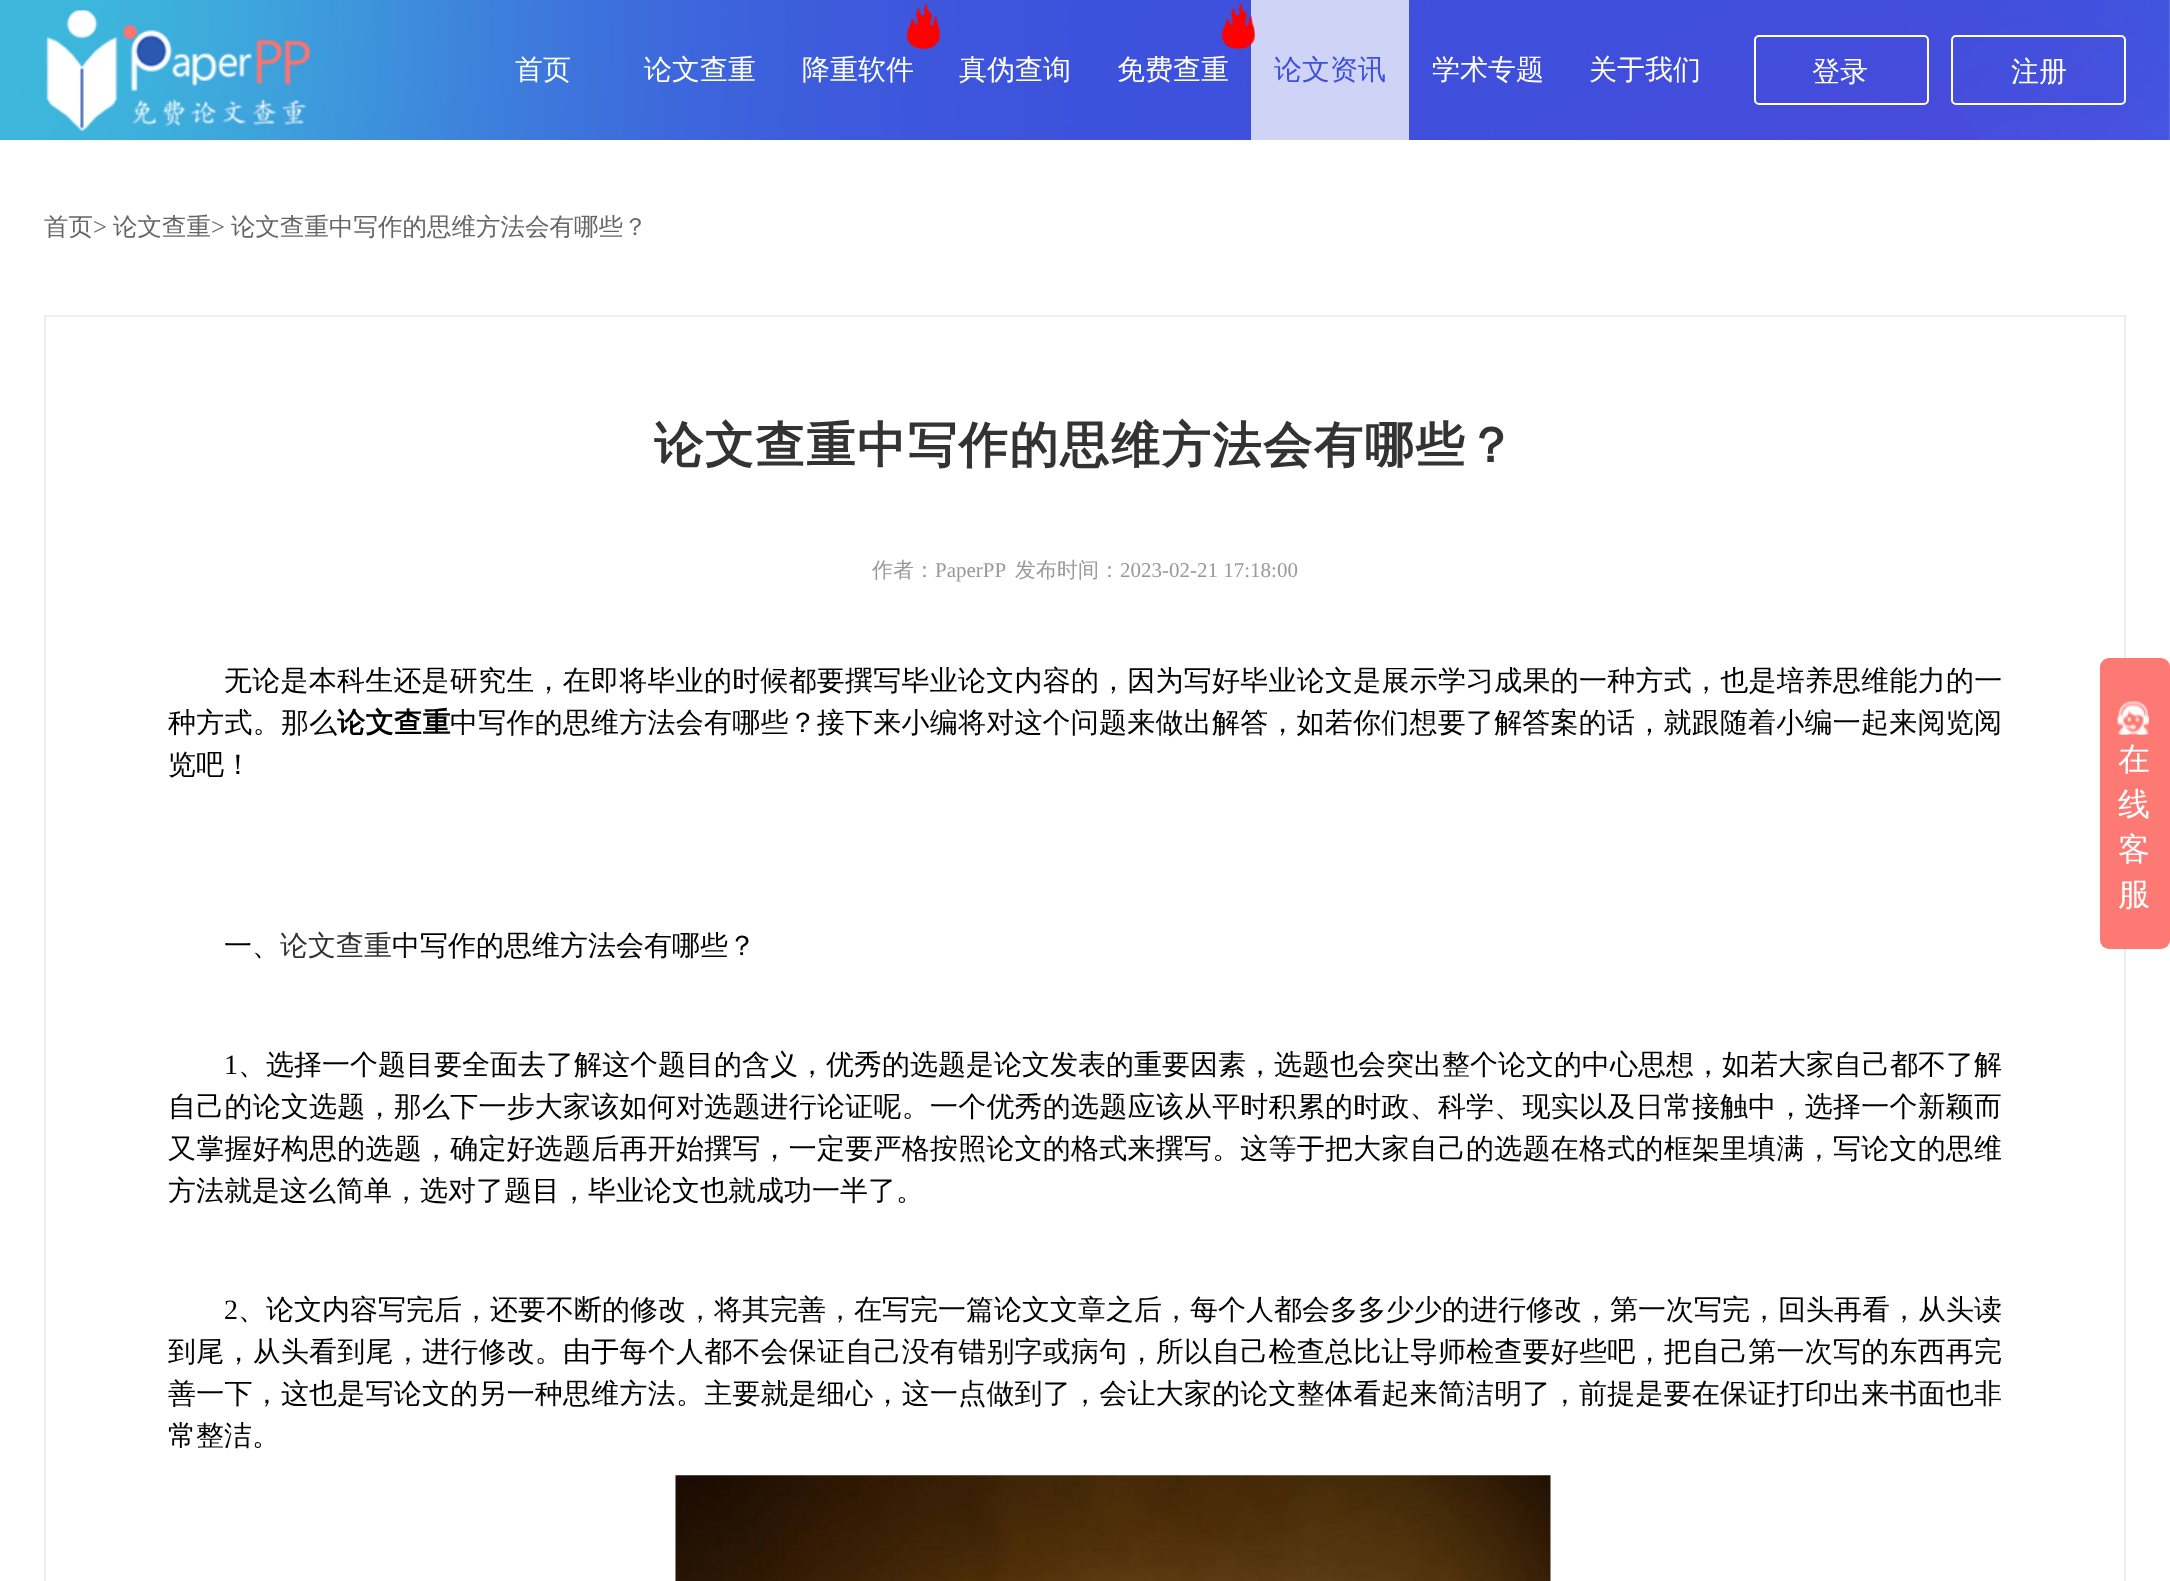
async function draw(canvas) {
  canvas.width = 2170;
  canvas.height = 1581;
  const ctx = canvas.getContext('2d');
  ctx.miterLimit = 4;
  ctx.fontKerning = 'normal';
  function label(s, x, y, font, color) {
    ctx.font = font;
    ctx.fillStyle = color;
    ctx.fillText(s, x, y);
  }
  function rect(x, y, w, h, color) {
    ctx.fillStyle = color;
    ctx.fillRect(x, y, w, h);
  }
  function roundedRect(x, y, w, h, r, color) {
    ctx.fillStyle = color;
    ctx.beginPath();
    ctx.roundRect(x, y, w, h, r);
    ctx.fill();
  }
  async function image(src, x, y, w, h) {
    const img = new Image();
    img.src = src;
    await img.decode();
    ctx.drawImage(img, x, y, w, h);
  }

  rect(0, 0, 2170, 1581, '#fff');
  await image('assets/img1.png', 0, 0, 2170, 140);
  await image('assets/img2.png', 46, 10, 265, 122);
  label('首页', 515, 79, '500 28px WenQuanYi Zen Hei', '#fff');
  label('论文查重', 644, 79, '500 28px WenQuanYi Zen Hei', '#fff');
  await image('assets/img3.png', 906, 3, 34, 46);
  label('降重软件', 802, 79, '500 28px WenQuanYi Zen Hei', '#fff');
  label('真伪查询', 959, 79, '500 28px WenQuanYi Zen Hei', '#fff');
  rect(1251, 0, 158, 140, '#cfd3f6');
  await image('assets/img4.png', 1221, 3, 34, 46);
  label('免费查重', 1117, 79, '500 28px WenQuanYi Zen Hei', '#fff');
  label('论文资讯', 1274, 79, '500 28px WenQuanYi Zen Hei', '#3d50dc');
  label('学术专题', 1432, 79, '500 28px WenQuanYi Zen Hei', '#fff');
  label('关于我们', 1589, 79, '500 28px WenQuanYi Zen Hei', '#fff');
  ctx.beginPath();
  ctx.roundRect(1755, 36, 173, 68, 4);
  ctx.strokeStyle = '#fff';
  ctx.lineWidth = 2;
  ctx.stroke();
  label('登录', 1812, 81, '500 28px WenQuanYi Zen Hei', '#fff');
  ctx.beginPath();
  ctx.roundRect(1952, 36, 173, 68, 4);
  ctx.stroke();
  label('注册', 2011, 81, '500 28px WenQuanYi Zen Hei', '#fff');
  label('首页', 44, 235, '500 24.5px WenQuanYi Zen Hei', '#666');
  label('>', 93, 235, '24.5px Liberation Serif', '#666');
  label('论文查重', 113, 235, '500 24.5px WenQuanYi Zen Hei', '#666');
  label('>', 211, 235, '24.5px Liberation Serif', '#666');
  label('论文查重中写作的思维方法会有哪些？', 231, 235, '500 24.5px WenQuanYi Zen Hei', '#666');
  ctx.strokeStyle = '#eee';
  ctx.strokeRect(45, 316, 2080, 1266);
  ctx.letterSpacing = '1.75px';
  label('论文查重中写作的思维方法会有哪些？', 654, 462, 'bold 49px WenQuanYi Zen Hei', '#333');
  ctx.letterSpacing = '0px';
  label('作者：', 872, 577, '500 21px WenQuanYi Zen Hei', '#999');
  label('PaperPP', 935, 577, '21px Liberation Serif', '#999');
  label('发布时间：', 1015, 577, '500 21px WenQuanYi Zen Hei', '#999');
  label('2023-02-21 17:18:00', 1120, 577, '21px Liberation Serif', '#999');
  ctx.letterSpacing = '0.23px';
  label('无论是本科生还是研究生，在即将毕业的时候都要撰写毕业论文内容的，因为写好毕业论文是展示学习成果的一种方式，也是培养思维能力的一', 224, 690, '500 28px WenQuanYi Zen Hei', '#000');
  ctx.letterSpacing = '0.25px';
  label('种方式。那么', 168, 732, '500 28px WenQuanYi Zen Hei', '#000');
  ctx.letterSpacing = '0.5px';
  label('论文查重', 337, 732, 'bold 28px WenQuanYi Zen Hei', '#000');
  ctx.letterSpacing = '0.22px';
  label('中写作的思维方法会有哪些？接下来小编将对这个问题来做出解答，如若你们想要了解答案的话，就跟随着小编一起来阅览阅', 450, 732, '500 28px WenQuanYi Zen Hei', '#000');
  ctx.letterSpacing = '0px';
  label('览吧！', 168, 774, '500 28px WenQuanYi Zen Hei', '#000');
  label('一、', 224, 955, '500 28px WenQuanYi Zen Hei', '#000');
  label('论文查重', 280, 955, '500 28px WenQuanYi Zen Hei', '#333');
  label('中写作的思维方法会有哪些？', 392, 955, '500 28px WenQuanYi Zen Hei', '#000');
  label('1', 224, 1074, '28px Liberation Serif', '#000');
  label('、选择一个题目要全面去了解这个题目的含义，优秀的选题是论文发表的重要因素，选题也会突出整个论文的中心思想，如若大家自己都不了解', 238, 1074, '500 28px WenQuanYi Zen Hei', '#000');
  ctx.letterSpacing = '0.22px';
  label('自己的论文选题，那么下一步大家该如何对选题进行论证呢。一个优秀的选题应该从平时积累的时政、科学、现实以及日常接触中，选择一个新颖而', 168, 1116, '500 28px WenQuanYi Zen Hei', '#000');
  label('又掌握好构思的选题，确定好选题后再开始撰写，一定要严格按照论文的格式来撰写。这等于把大家自己的选题在格式的框架里填满，写论文的思维', 168, 1158, '500 28px WenQuanYi Zen Hei', '#000');
  ctx.letterSpacing = '0px';
  label('方法就是这么简单，选对了题目，毕业论文也就成功一半了。', 168, 1200, '500 28px WenQuanYi Zen Hei', '#000');
  label('2', 224, 1319, '28px Liberation Serif', '#000');
  label('、论文内容写完后，还要不断的修改，将其完善，在写完一篇论文文章之后，每个人都会多多少少的进行修改，第一次写完，回头再看，从头读', 238, 1319, '500 28px WenQuanYi Zen Hei', '#000');
  ctx.letterSpacing = '0.22px';
  label('到尾，从头看到尾，进行修改。由于每个人都不会保证自己没有错别字或病句，所以自己检查总比让导师检查要好些吧，把自己第一次写的东西再完', 168, 1361, '500 28px WenQuanYi Zen Hei', '#000');
  label('善一下，这也是写论文的另一种思维方法。主要就是细心，这一点做到了，会让大家的论文整体看起来简洁明了，前提是要在保证打印出来书面也非', 168, 1403, '500 28px WenQuanYi Zen Hei', '#000');
  ctx.letterSpacing = '0px';
  label('常整洁。', 168, 1445, '500 28px WenQuanYi Zen Hei', '#000');
  await image('assets/img5.png', 675, 1475, 876, 106);
  roundedRect(2100, 658, 70, 291, 9, '#fc7a73');
  await image('assets/img6.png', 2117, 701, 32, 34);
  label('在', 2118, 770, '500 32px WenQuanYi Zen Hei', '#fff');
  label('线', 2118, 815, '500 32px WenQuanYi Zen Hei', '#fff');
  label('客', 2118, 860, '500 32px WenQuanYi Zen Hei', '#fff');
  label('服', 2118, 905, '500 32px WenQuanYi Zen Hei', '#fff');
}

draw(document.querySelector('canvas'));
